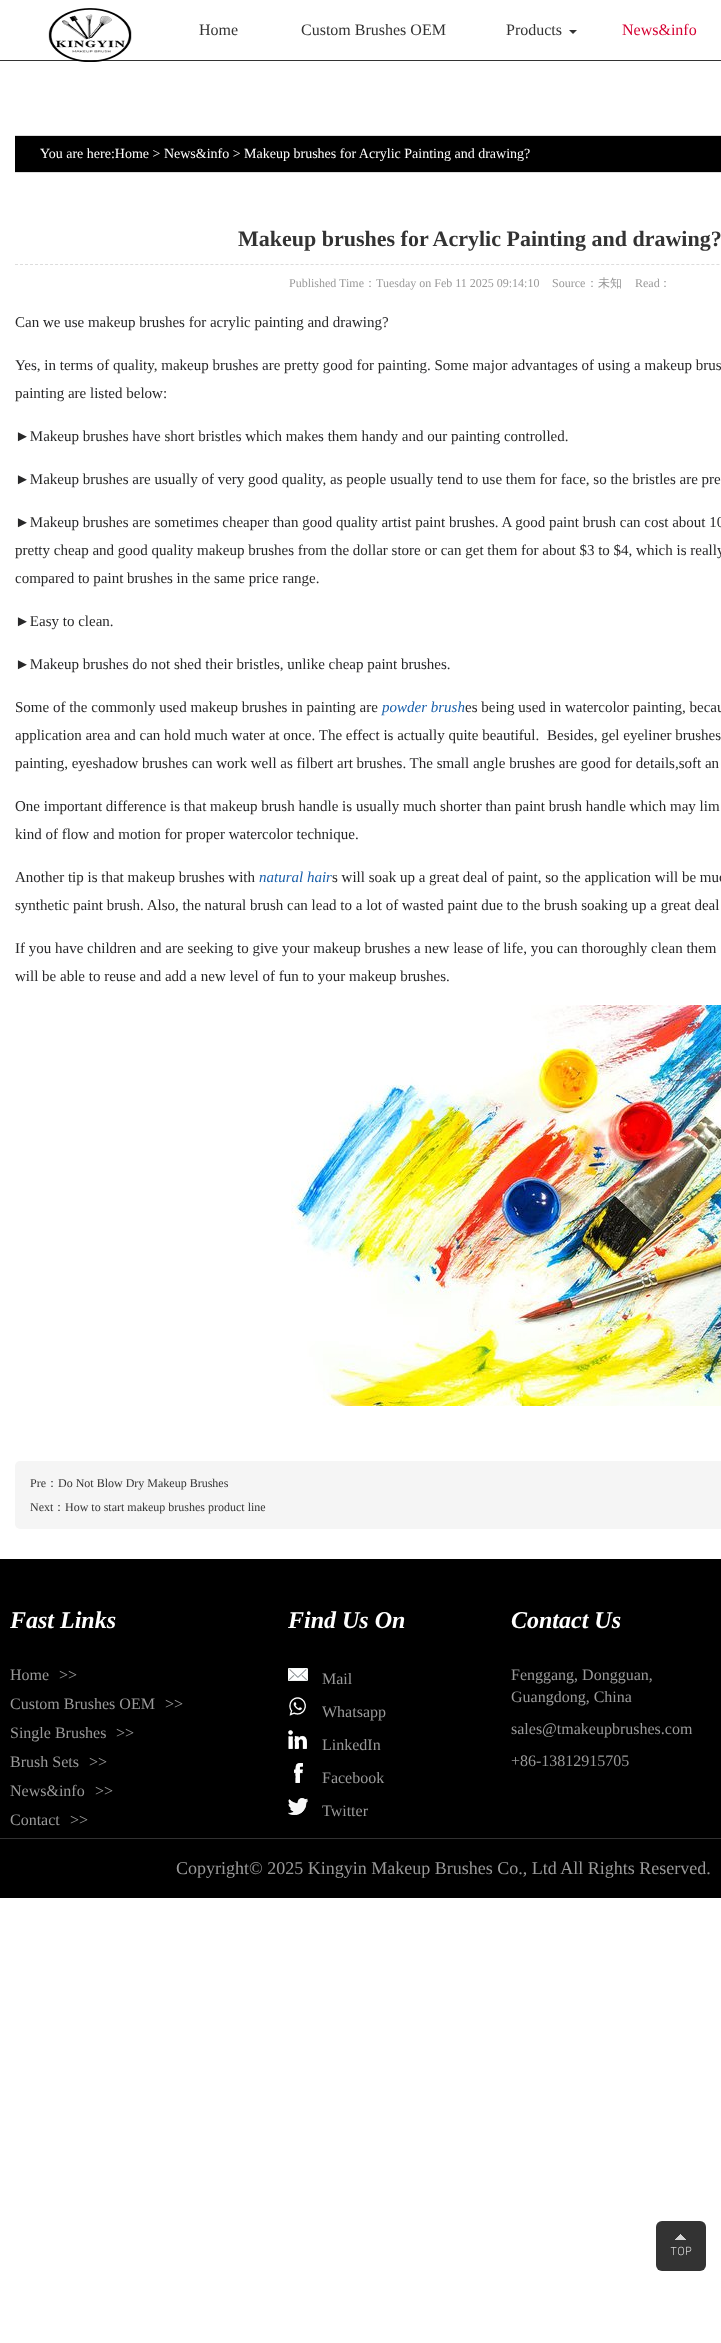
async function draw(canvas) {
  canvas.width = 721;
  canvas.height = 2343;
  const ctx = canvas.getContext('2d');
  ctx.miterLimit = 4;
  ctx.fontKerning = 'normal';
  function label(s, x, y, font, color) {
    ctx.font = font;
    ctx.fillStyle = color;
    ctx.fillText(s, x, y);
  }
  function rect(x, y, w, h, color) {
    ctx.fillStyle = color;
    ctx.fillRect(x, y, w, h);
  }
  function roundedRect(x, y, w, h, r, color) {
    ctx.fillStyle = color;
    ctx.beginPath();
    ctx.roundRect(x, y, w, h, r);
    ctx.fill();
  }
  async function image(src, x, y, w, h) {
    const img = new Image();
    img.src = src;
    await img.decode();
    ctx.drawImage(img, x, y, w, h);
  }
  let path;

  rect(0, 0, 721, 2343, '#fff');
  rect(0, 60, 721, 1, '#333');
  await image('assets/img1.png', 48, 8, 84, 54);
  label('Home', 199, 35, '16px Liberation Serif', '#333');
  label('Custom Brushes OEM', 301, 35, '16px Liberation Serif', '#333');
  label('Products', 506, 35, '16px Liberation Serif', '#333');
  path = new Path2D('M569 30H577L573 34Z');
  ctx.fill(path);
  label('News&info', 622, 35, '16px Liberation Serif', '#d50032');
  rect(15, 136, 706, 36, '#000');
  rect(15, 135, 706, 1, '#ddd');
  rect(15, 172, 706, 1, '#ddd');
  label('You are here:Home > News&info > Makeup brushes for Acrylic Painting and drawing?', 40, 158, '14px Liberation Serif', '#fff');
  label('Makeup brushes for Acrylic Painting and drawing?', 238, 246, 'bold 22px Liberation Serif', '#333');
  path = new Path2D('M15 264.5H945');
  ctx.strokeStyle = '#ddd';
  ctx.setLineDash([3, 2.01]);
  ctx.stroke(path);
  label('Published Time', 289, 287, '12px Liberation Serif', '#999');
  label('：', 364, 287, '500 12px WenQuanYi Zen Hei', '#999');
  label('Tuesday on Feb 11 2025 09:14:10', 376, 287, '12px Liberation Serif', '#999');
  label('Source', 552, 287, '12px Liberation Serif', '#999');
  label('：未知', 586, 287, '500 12px WenQuanYi Zen Hei', '#999');
  label('Read', 635, 287, '12px Liberation Serif', '#999');
  label('：', 659, 287, '500 12px WenQuanYi Zen Hei', '#999');
  label('Can we use makeup brushes for acrylic painting and drawing?', 15, 327, '15px Liberation Serif', '#282829');
  label('Yes, in terms of quality, makeup brushes are pretty good for painting. Some major advantages of using a makeup brus', 15, 370, '15px Liberation Serif', '#282829');
  label('painting are listed below:', 15, 398, '15px Liberation Serif', '#282829');
  label('►Makeup brushes have short bristles which makes them handy and our painting controlled.', 15, 441, '15px Liberation Serif', '#282829');
  label('►Makeup brushes are usually of very good quality, as people usually tend to use them for face, so the bristles are pre', 15, 484, '15px Liberation Serif', '#282829');
  label('►Makeup brushes are sometimes cheaper than good quality artist paint brushes. A good paint brush can cost about 10', 15, 527, '15px Liberation Serif', '#282829');
  label('pretty cheap and good quality makeup brushes from the dollar store or can get them for about $3 to $4, which is really', 15, 555, '15px Liberation Serif', '#282829');
  label('compared to paint brushes in the same price range.', 15, 583, '15px Liberation Serif', '#282829');
  label('►Easy to clean.', 15, 626, '15px Liberation Serif', '#282829');
  label('►Makeup brushes do not shed their bristles, unlike cheap paint brushes.', 15, 669, '15px Liberation Serif', '#282829');
  label('Some of the commonly used makeup brushes in painting are', 15, 712, '15px Liberation Serif', '#282829');
  label('powder brush', 382, 712, 'italic 15px Liberation Serif', '#195faa');
  label('es being used in watercolor painting, becau', 465, 712, '15px Liberation Serif', '#282829');
  label('application area and can hold much water at once. The effect is actually quite beautiful.', 15, 740, '15px Liberation Serif', '#282829');
  label('Besides, gel eyeliner brushes', 547, 740, '15px Liberation Serif', '#282829');
  label('painting, eyeshadow brushes can work well as filbert art brushes. The small angle brushes are good for details,soft an', 15, 768, '15px Liberation Serif', '#282829');
  label('One important difference is that makeup brush handle is usually much shorter than paint brush handle which may lim', 15, 811, '15px Liberation Serif', '#282829');
  label('kind of flow and motion for proper watercolor technique.', 15, 839, '15px Liberation Serif', '#282829');
  label('Another tip is that makeup brushes with', 15, 882, '15px Liberation Serif', '#282829');
  label('natural hair', 259, 882, 'italic 15px Liberation Serif', '#195faa');
  label('s will soak up a great deal of paint, so the application will be muc', 332, 882, '15px Liberation Serif', '#282829');
  label('synthetic paint brush. Also, the natural brush can lead to a lot of wasted paint due to the brush soaking up a great deal', 15, 910, '15px Liberation Serif', '#282829');
  label('If you have children and are seeking to give your makeup brushes a new lease of life, you can thoroughly clean them', 15, 953, '15px Liberation Serif', '#282829');
  label('will be able to reuse and add a new level of fun to your makeup brushes.', 15, 981, '15px Liberation Serif', '#282829');
  await image('assets/img2.png', 291, 1005, 430, 401);
  roundedRect(15, 1461, 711, 68, 5, '#f5f5f5');
  label('Pre', 30, 1487, '12px Liberation Serif', '#333');
  label('：', 46, 1487, '500 12px WenQuanYi Zen Hei', '#333');
  label('Do Not Blow Dry Makeup Brushes', 58, 1487, '12px Liberation Serif', '#333');
  label('Next', 30, 1511, '12px Liberation Serif', '#333');
  label('：', 53, 1511, '500 12px WenQuanYi Zen Hei', '#333');
  label('How to start makeup brushes product line', 65, 1511, '12px Liberation Serif', '#333');
  rect(0, 1559, 721, 339, '#000');
  label('Fast Links', 10, 1628, 'italic bold 24px Liberation Serif', '#fff');
  label('Home', 10, 1680, '16px Liberation Serif', '#999');
  label('>>', 59, 1680, '16px Liberation Serif', '#999');
  label('Custom Brushes OEM', 10, 1709, '16px Liberation Serif', '#999');
  label('>>', 165, 1709, '16px Liberation Serif', '#999');
  label('Single Brushes', 10, 1738, '16px Liberation Serif', '#999');
  label('>>', 116, 1738, '16px Liberation Serif', '#999');
  label('Brush Sets', 10, 1767, '16px Liberation Serif', '#999');
  label('>>', 89, 1767, '16px Liberation Serif', '#999');
  label('News&info', 10, 1796, '16px Liberation Serif', '#999');
  label('>>', 95, 1796, '16px Liberation Serif', '#999');
  label('Contact', 10, 1825, '16px Liberation Serif', '#999');
  label('>>', 70, 1825, '16px Liberation Serif', '#999');
  label('Find Us On', 288, 1628, 'italic bold 24px Liberation Serif', '#fff');
  await image('assets/img3.png', 288, 1668, 20, 13);
  await image('assets/img4.png', 288, 1668, 20, 13);
  label('Mail', 322, 1684, '16px Liberation Serif', '#999');
  await image('assets/img5.png', 289, 1697, 17, 19);
  label('Whatsapp', 322, 1717, '16px Liberation Serif', '#999');
  await image('assets/img6.png', 288, 1730, 19, 19);
  await image('assets/img7.png', 288, 1730, 19, 19);
  label('LinkedIn', 322, 1750, '16px Liberation Serif', '#999');
  await image('assets/img8.png', 294, 1763, 9, 20);
  await image('assets/img9.png', 294, 1763, 9, 20);
  label('Facebook', 322, 1783, '16px Liberation Serif', '#999');
  await image('assets/img10.png', 288, 1798, 20, 17);
  await image('assets/img11.png', 288, 1798, 20, 17);
  label('Twitter', 322, 1816, '16px Liberation Serif', '#999');
  label('Contact Us', 511, 1628, 'italic bold 24px Liberation Serif', '#fff');
  label('Fenggang, Dongguan,', 511, 1680, '16px Liberation Serif', '#999');
  label('Guangdong, China', 511, 1702, '16px Liberation Serif', '#999');
  label('sales@tmakeupbrushes.com', 511, 1734, '16px Liberation Serif', '#999');
  label('+86-13812915705', 511, 1766, '16px Liberation Serif', '#999');
  rect(0, 1838, 721, 1, '#313131');
  label('Copyright© 2025 Kingyin Makeup Brushes Co., Ltd All Rights Reserved.', 176, 1874, '18px Liberation Serif', '#999');
  roundedRect(656, 2221, 50, 50, 6, '#333');
  await image('assets/img12.png', 670, 2234, 22, 22);
}

draw(document.querySelector('canvas'));
